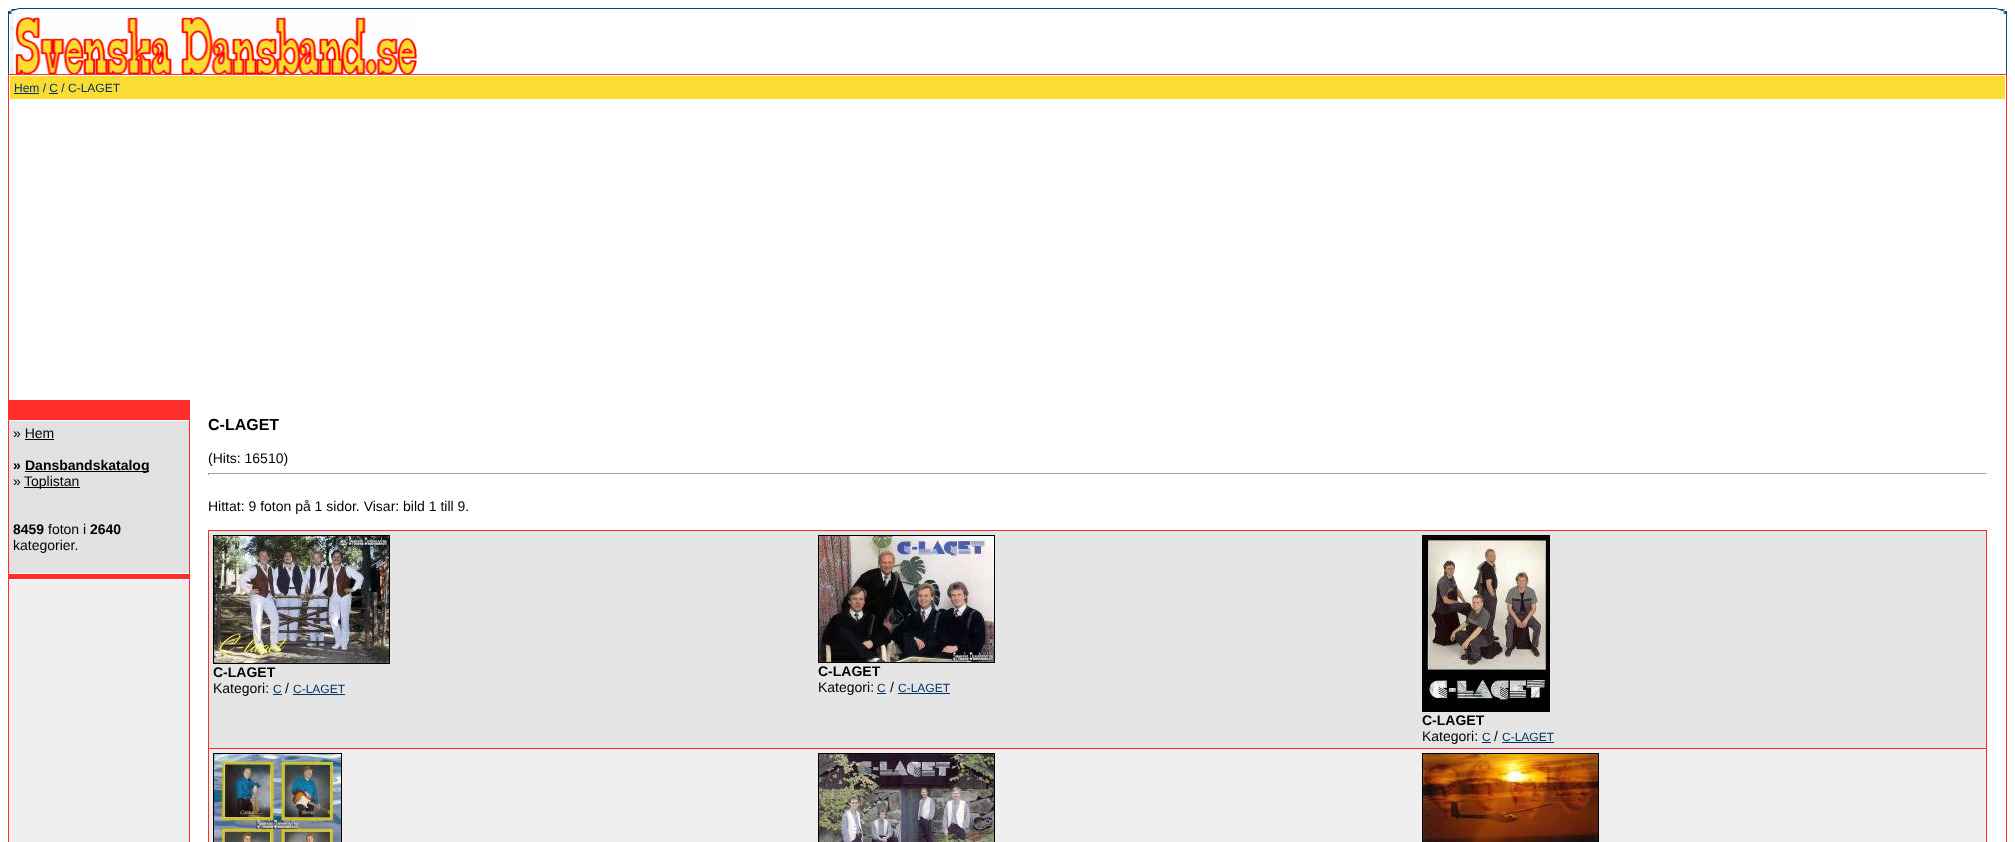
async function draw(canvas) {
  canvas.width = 2015;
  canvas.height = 842;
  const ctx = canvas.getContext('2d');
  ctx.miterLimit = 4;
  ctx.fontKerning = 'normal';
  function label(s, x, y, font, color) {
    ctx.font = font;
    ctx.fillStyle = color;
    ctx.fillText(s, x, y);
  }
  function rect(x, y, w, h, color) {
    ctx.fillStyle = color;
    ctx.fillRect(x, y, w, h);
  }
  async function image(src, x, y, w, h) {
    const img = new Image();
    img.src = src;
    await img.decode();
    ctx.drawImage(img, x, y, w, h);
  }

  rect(0, 0, 2015, 842, '#fff');
  await image('assets/img1.png', 8, 8, 1999, 6);
  await image('assets/img2.png', 8, 14, 6, 60);
  await image('assets/img3.png', 15, 16, 402, 58);
  rect(2006, 14, 1, 60, '#004c75');
  rect(8, 74, 1999, 768, '#ff2e2c');
  rect(9, 75, 1997, 767, '#fff');
  rect(10, 76, 1995, 23, '#fbdc33');
  label('Hem / C / C-LAGET', 14, 92, '12px Liberation Sans', '#036');
  rect(14, 93, 25, 1, '#036');
  rect(49, 93, 9, 1, '#036');
  rect(9, 580, 180, 262, '#efefef');
  rect(9, 400, 180, 20, '#ff2e2c');
  rect(9, 421, 180, 152, '#e1e1e1');
  label('» Hem', 13, 438, '14px Liberation Sans', '#000');
  rect(25, 439, 29, 1, '#000');
  label('»', 13, 470, 'bold 14px Liberation Sans', '#000');
  rect(25, 471, 124, 1, '#000');
  label('Dansbandskatalog', 25, 470, 'bold 14px Liberation Sans', '#000');
  label('»', 13, 486, '14px Liberation Sans', '#000');
  rect(24, 487, 56, 1, '#000');
  label('Toplistan', 24, 486, '14px Liberation Sans', '#000');
  label('8459', 13, 534, 'bold 14px Liberation Sans', '#000');
  label('foton i', 48, 534, '14px Liberation Sans', '#000');
  label('2640', 90, 534, 'bold 14px Liberation Sans', '#000');
  label('kategorier.', 13, 550, '14px Liberation Sans', '#000');
  rect(9, 574, 180, 5, '#ff2e2c');
  rect(189, 400, 1, 442, '#ff2e2c');
  label('C-LAGET', 208, 430, 'bold 16px Liberation Sans', '#000');
  label('(Hits: 16510)', 208, 463, '14px Liberation Sans', '#000');
  rect(208, 473, 1779, 1, '#9f9f9f');
  rect(1986, 473, 1, 2, '#eee');
  rect(208, 473, 1, 2, '#9f9f9f');
  label('Hittat: 9 foton på 1 sidor. Visar: bild 1 till 9.', 208, 511, '14px Liberation Sans', '#000');
  rect(208, 530, 1779, 312, '#ff2e2c');
  rect(209, 531, 1777, 217, '#e5e5e5');
  ctx.strokeStyle = '#000';
  ctx.strokeRect(213.5, 535.5, 176, 128);
  await image('assets/img4.png', 214, 536, 175, 127);
  label('C-LAGET', 213, 677, 'bold 14px Liberation Sans', '#000');
  label('Kategori:', 213, 693, '14px Liberation Sans', '#000');
  label('C', 273, 693, '12px Liberation Sans', '#036');
  rect(273, 694, 9, 1, '#036');
  label('/', 285, 693, '14px Liberation Sans', '#000');
  label('C-LAGET', 293, 693, '12px Liberation Sans', '#036');
  rect(293, 694, 52, 1, '#036');
  ctx.strokeRect(818.5, 535.5, 176, 127);
  await image('assets/img5.png', 819, 536, 175, 126);
  label('C-LAGET', 818, 676, 'bold 14px Liberation Sans', '#000');
  label('Kategori:', 818, 692, '14px Liberation Sans', '#000');
  label('C', 877, 692, '12px Liberation Sans', '#036');
  rect(877, 693, 9, 1, '#036');
  label('/', 890, 692, '14px Liberation Sans', '#000');
  label('C-LAGET', 898, 692, '12px Liberation Sans', '#036');
  rect(898, 693, 52, 1, '#036');
  ctx.strokeRect(1422.5, 535.5, 127, 176);
  await image('assets/img6.png', 1423, 536, 126, 175);
  label('C-LAGET', 1422, 725, 'bold 14px Liberation Sans', '#000');
  label('Kategori:', 1422, 741, '14px Liberation Sans', '#000');
  label('C', 1482, 741, '12px Liberation Sans', '#036');
  rect(1482, 742, 9, 1, '#036');
  label('/', 1494, 741, '14px Liberation Sans', '#000');
  label('C-LAGET', 1502, 741, '12px Liberation Sans', '#036');
  rect(1502, 742, 52, 1, '#036');
  rect(209, 749, 1777, 93, '#efefef');
  ctx.strokeRect(213.5, 753.5, 128, 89);
  await image('assets/img7.png', 214, 754, 127, 88);
  ctx.strokeRect(818.5, 753.5, 176, 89);
  await image('assets/img8.png', 819, 754, 175, 88);
  ctx.strokeRect(1422.5, 753.5, 176, 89);
  await image('assets/img9.png', 1423, 754, 175, 88);
}

draw(document.querySelector('canvas'));
